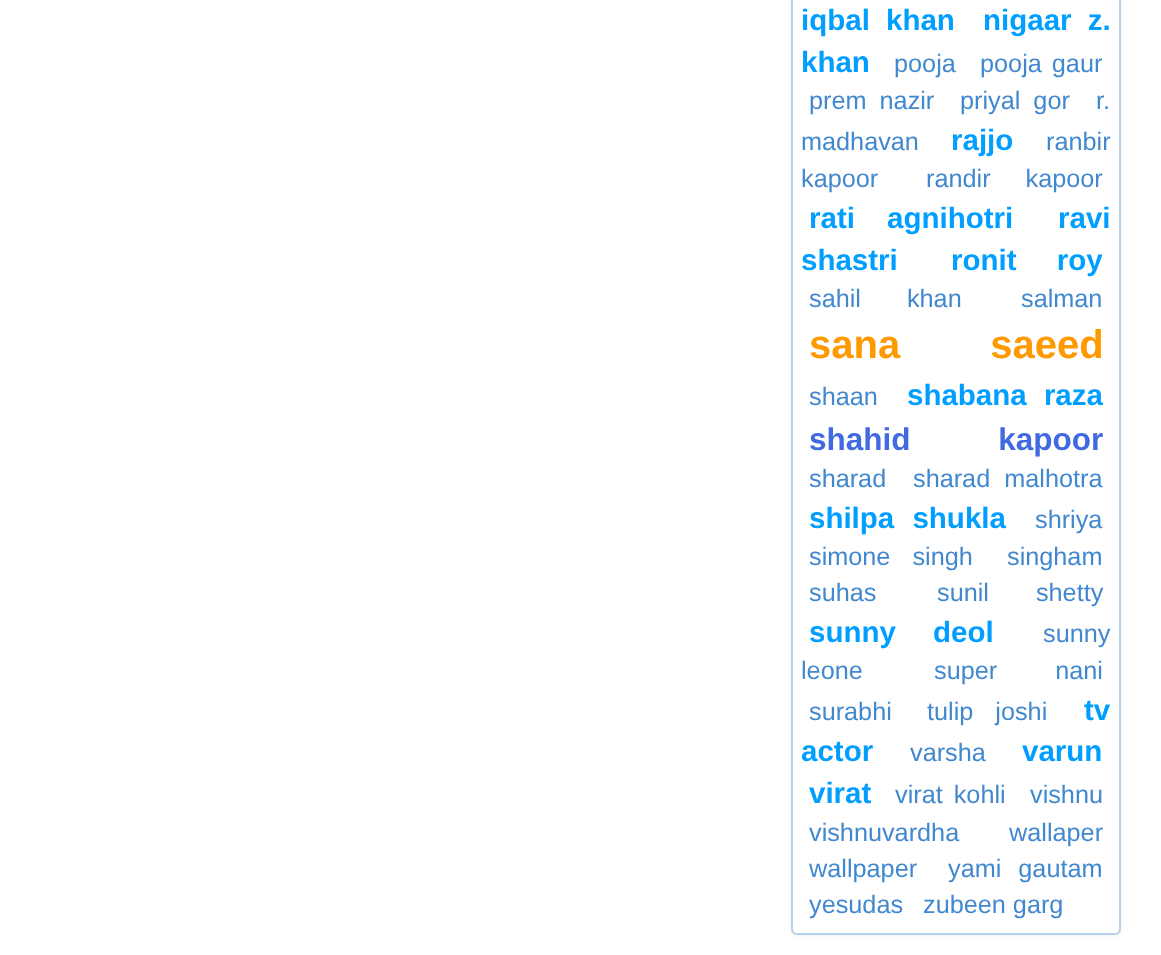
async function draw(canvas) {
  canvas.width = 1161;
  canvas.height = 955;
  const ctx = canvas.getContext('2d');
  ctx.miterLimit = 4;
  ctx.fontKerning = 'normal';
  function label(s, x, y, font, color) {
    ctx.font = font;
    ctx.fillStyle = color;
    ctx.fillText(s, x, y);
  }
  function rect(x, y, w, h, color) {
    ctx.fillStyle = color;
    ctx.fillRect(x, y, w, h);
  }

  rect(0, 0, 1161, 955, '#fff');
  ctx.fillStyle = '#0000000d';
  ctx.filter = 'blur(1.5px)';
  ctx.beginPath();
  ctx.roundRect(791, -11, 330, 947, 6);
  ctx.fill();
  ctx.filter = 'none';
  ctx.fillStyle = '#fff';
  ctx.beginPath();
  ctx.roundRect(792, -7, 328, 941, 5);
  ctx.fill();
  ctx.strokeStyle = '#b7d3eb';
  ctx.lineWidth = 2;
  ctx.stroke();
  ctx.wordSpacing = '8px';
  label('iqbal khan', 801, 30, 'bold 29.5px Liberation Sans', '#009eff');
  label('nigaar z.', 983, 30, 'bold 29.5px Liberation Sans', '#009eff');
  ctx.wordSpacing = '0px';
  label('khan', 801, 72, 'bold 29.5px Liberation Sans', '#009eff');
  label('pooja', 894, 72, '25.25px Liberation Sans', '#4188cf');
  ctx.wordSpacing = '3px';
  label('pooja gaur', 980, 72, '25.25px Liberation Sans', '#4188cf');
  ctx.wordSpacing = '6px';
  label('prem nazir', 809, 109, '25.25px Liberation Sans', '#4188cf');
  label('priyal gor', 960, 109, '25.25px Liberation Sans', '#4188cf');
  ctx.wordSpacing = '0px';
  label('r.', 1096, 109, '25.25px Liberation Sans', '#4188cf');
  label('madhavan', 801, 150, '25.25px Liberation Sans', '#4188cf');
  label('rajjo', 951, 150, 'bold 29.5px Liberation Sans', '#009eff');
  label('ranbir', 1046, 150, '25.25px Liberation Sans', '#4188cf');
  label('kapoor', 801, 187, '25.25px Liberation Sans', '#4188cf');
  ctx.wordSpacing = '28px';
  label('randir kapoor', 926, 187, '25.25px Liberation Sans', '#4188cf');
  ctx.wordSpacing = '24px';
  label('rati agnihotri', 809, 228, 'bold 29.5px Liberation Sans', '#009eff');
  ctx.wordSpacing = '0px';
  label('ravi', 1058, 228, 'bold 29.5px Liberation Sans', '#009eff');
  label('shastri', 801, 270, 'bold 29.5px Liberation Sans', '#009eff');
  ctx.wordSpacing = '32px';
  label('ronit roy', 951, 270, 'bold 29.5px Liberation Sans', '#009eff');
  ctx.wordSpacing = '39px';
  label('sahil khan', 809, 307, '25.25px Liberation Sans', '#4188cf');
  ctx.wordSpacing = '0px';
  label('salman', 1021, 307, '25.25px Liberation Sans', '#4188cf');
  ctx.wordSpacing = '79px';
  label('sana saeed', 809, 358, 'bold 40px Liberation Sans', '#f90');
  ctx.wordSpacing = '0px';
  label('shaan', 809, 405, '25.25px Liberation Sans', '#4188cf');
  ctx.wordSpacing = '9px';
  label('shabana raza', 907, 405, 'bold 29.5px Liberation Sans', '#009eff');
  ctx.wordSpacing = '79px';
  label('shahid kapoor', 809, 450, 'bold 31.5px Liberation Sans', '#4169e1');
  ctx.wordSpacing = '0px';
  label('sharad', 809, 487, '25.25px Liberation Sans', '#4188cf');
  ctx.wordSpacing = '7px';
  label('sharad malhotra', 913, 487, '25.25px Liberation Sans', '#4188cf');
  ctx.wordSpacing = '10px';
  label('shilpa shukla', 809, 528, 'bold 29.5px Liberation Sans', '#009eff');
  ctx.wordSpacing = '0px';
  label('shriya', 1035, 528, '25.25px Liberation Sans', '#4188cf');
  ctx.wordSpacing = '15px';
  label('simone singh', 809, 565, '25.25px Liberation Sans', '#4188cf');
  ctx.wordSpacing = '0px';
  label('singham', 1007, 565, '25.25px Liberation Sans', '#4188cf');
  label('suhas', 809, 601, '25.25px Liberation Sans', '#4188cf');
  ctx.wordSpacing = '40px';
  label('sunil shetty', 937, 601, '25.25px Liberation Sans', '#4188cf');
  ctx.wordSpacing = '29px';
  label('sunny deol', 809, 642, 'bold 29.5px Liberation Sans', '#009eff');
  ctx.wordSpacing = '0px';
  label('sunny', 1043, 642, '25.25px Liberation Sans', '#4188cf');
  label('leone', 801, 679, '25.25px Liberation Sans', '#4188cf');
  ctx.wordSpacing = '51px';
  label('super nani', 934, 679, '25.25px Liberation Sans', '#4188cf');
  ctx.wordSpacing = '0px';
  label('surabhi', 809, 720, '25.25px Liberation Sans', '#4188cf');
  ctx.wordSpacing = '15px';
  label('tulip joshi', 927, 720, '25.25px Liberation Sans', '#4188cf');
  ctx.wordSpacing = '0px';
  label('tv', 1084, 720, 'bold 29.5px Liberation Sans', '#009eff');
  label('actor', 801, 761, 'bold 29.5px Liberation Sans', '#009eff');
  label('varsha', 910, 761, '25.25px Liberation Sans', '#4188cf');
  label('varun', 1022, 761, 'bold 29.5px Liberation Sans', '#009eff');
  label('virat', 809, 803, 'bold 29.5px Liberation Sans', '#009eff');
  ctx.wordSpacing = '4px';
  label('virat kohli', 895, 803, '25.25px Liberation Sans', '#4188cf');
  ctx.wordSpacing = '0px';
  label('vishnu', 1030, 803, '25.25px Liberation Sans', '#4188cf');
  label('vishnuvardha', 809, 841, '25.25px Liberation Sans', '#4188cf');
  label('wallaper', 1009, 841, '25.25px Liberation Sans', '#4188cf');
  label('wallpaper', 809, 877, '25.25px Liberation Sans', '#4188cf');
  ctx.wordSpacing = '10px';
  label('yami gautam', 948, 877, '25.25px Liberation Sans', '#4188cf');
  ctx.wordSpacing = '0px';
  label('yesudas', 809, 913, '25.25px Liberation Sans', '#4188cf');
  label('zubeen garg', 923, 913, '25.25px Liberation Sans', '#4188cf');
}

draw(document.querySelector('canvas'));
